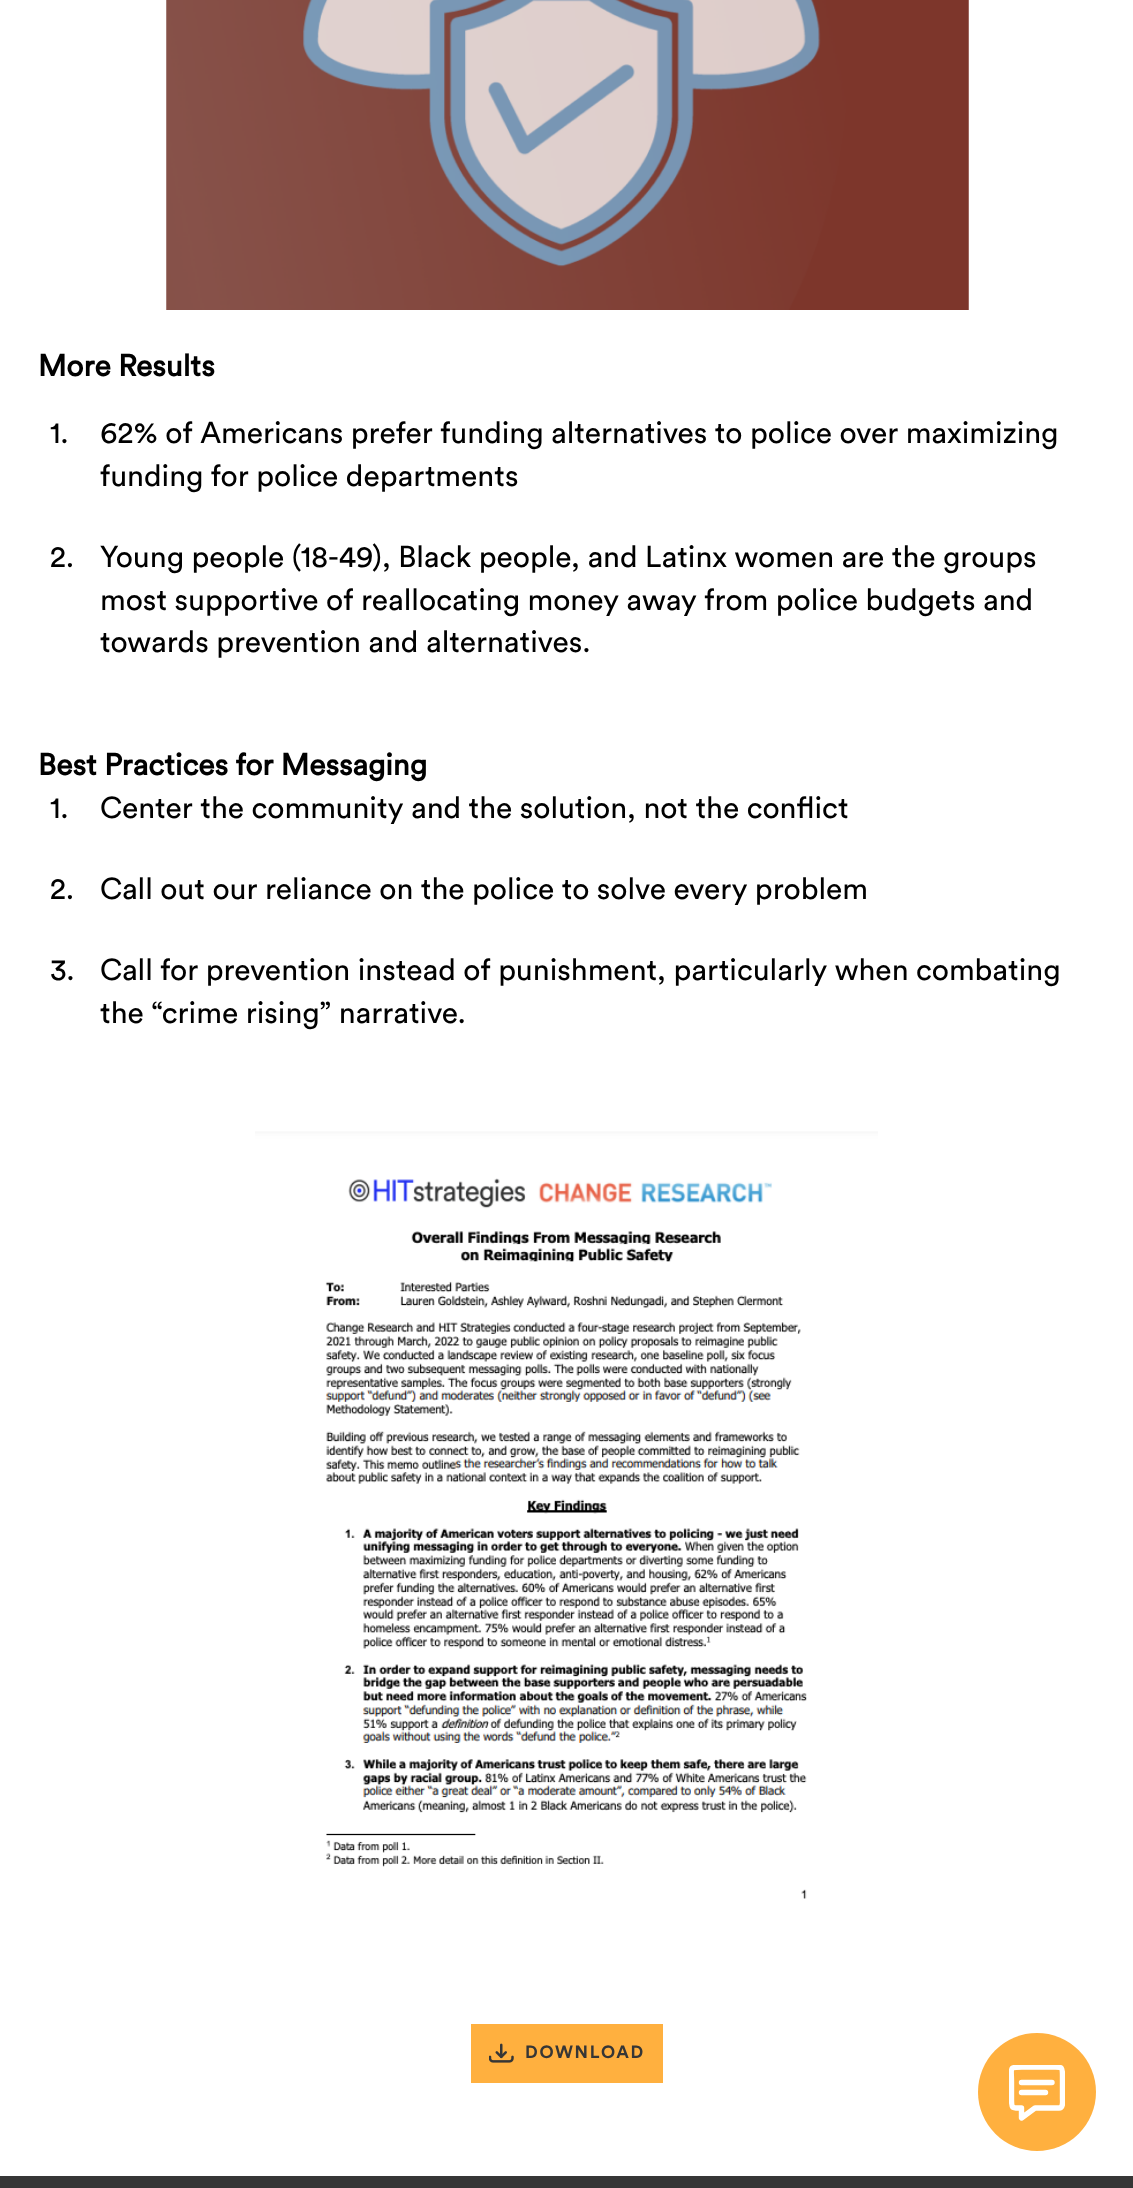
async function draw(canvas) {
  canvas.width = 1133;
  canvas.height = 2188;
  const ctx = canvas.getContext('2d');
  ctx.miterLimit = 4;
  ctx.fontKerning = 'normal';
  function label(s, x, y, font, color) {
    ctx.font = font;
    ctx.fillStyle = color;
    ctx.fillText(s, x, y);
  }
  function rect(x, y, w, h, color) {
    ctx.fillStyle = color;
    ctx.fillRect(x, y, w, h);
  }
  async function image(src, x, y, w, h) {
    const img = new Image();
    img.src = src;
    await img.decode();
    ctx.drawImage(img, x, y, w, h);
  }
  let path;

  rect(0, 0, 1133, 2188, '#fff');
  await image('assets/img1.png', 166, 0, 803, 310);
  label('More Results', 38, 376, 'bold 30px Circular', '#000');
  label('1.', 50, 443, '30px Circular', '#000');
  label('62% of Americans prefer funding alternatives to police over maximizing', 100, 443, '30px Circular', '#000');
  label('funding for police departments', 100, 486, '30px Circular', '#000');
  label('2.', 50, 567, '30px Circular', '#000');
  label('Young people (18-49), Black people, and Latinx women are the groups', 100, 567, '30px Circular', '#000');
  label('most supportive of reallocating money away from police budgets and', 100, 610, '30px Circular', '#000');
  label('towards prevention and alternatives.', 100, 652, '30px Circular', '#000');
  label('Best Practices for Messaging', 38, 775, 'bold 30px Circular', '#000');
  label('1.', 50, 818, '30px Circular', '#000');
  label('Center the community and the solution, not the conflict', 100, 818, '30px Circular', '#000');
  label('2.', 50, 899, '30px Circular', '#000');
  label('Call out our reliance on the police to solve every problem', 100, 899, '30px Circular', '#000');
  label('3.', 50, 980, '30px Circular', '#000');
  label('Call for prevention instead of punishment, particularly when combating', 100, 980, '30px Circular', '#000');
  label('the “crime rising” narrative.', 100, 1023, '30px Circular', '#000');
  await image('assets/img2.png', 255, 1131, 623, 768);
  rect(471, 2024, 192, 59, '#ffb03f');
  await image('assets/img3.png', 489, 2043, 25, 20);
  ctx.letterSpacing = '1.75px';
  label('DOWNLOAD', 525, 2058, 'bold 17.5px "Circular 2"', '#363636');
  rect(0, 2176, 1133, 12, '#363636');
  ctx.fillStyle = '#ffb03f';
  ctx.beginPath();
  ctx.arc(1037, 2092, 59, 0, 2 * Math.PI);
  ctx.fill();
  ctx.save();
  ctx.beginPath();
  ctx.rect(1009, 2065, 56, 56);
  ctx.clip();
  path = new Path2D('M1059 2108H1035L1021.5 2118V2108C1012 2108 1011.5 2109 1011.5 2098.5V2082C1011.5 2067.5 1008.5 2067 1022 2067H1051.5C1062 2067 1062.5 2066 1062.5 2076V2098.5C1062.5 2101 1063.5 2108 1059 2108Z');
  ctx.strokeStyle = '#fff';
  ctx.lineWidth = 5.4;
  ctx.lineCap = 'round';
  ctx.lineJoin = 'round';
  ctx.stroke(path);
  ctx.restore();
  path = new Path2D('M1021.5 2082.5H1052M1021.5 2092.5H1045.5');
  ctx.strokeStyle = '#fff';
  ctx.lineWidth = 5.4;
  ctx.lineCap = 'round';
  ctx.lineJoin = 'round';
  ctx.stroke(path);
}

draw(document.querySelector('canvas'));
